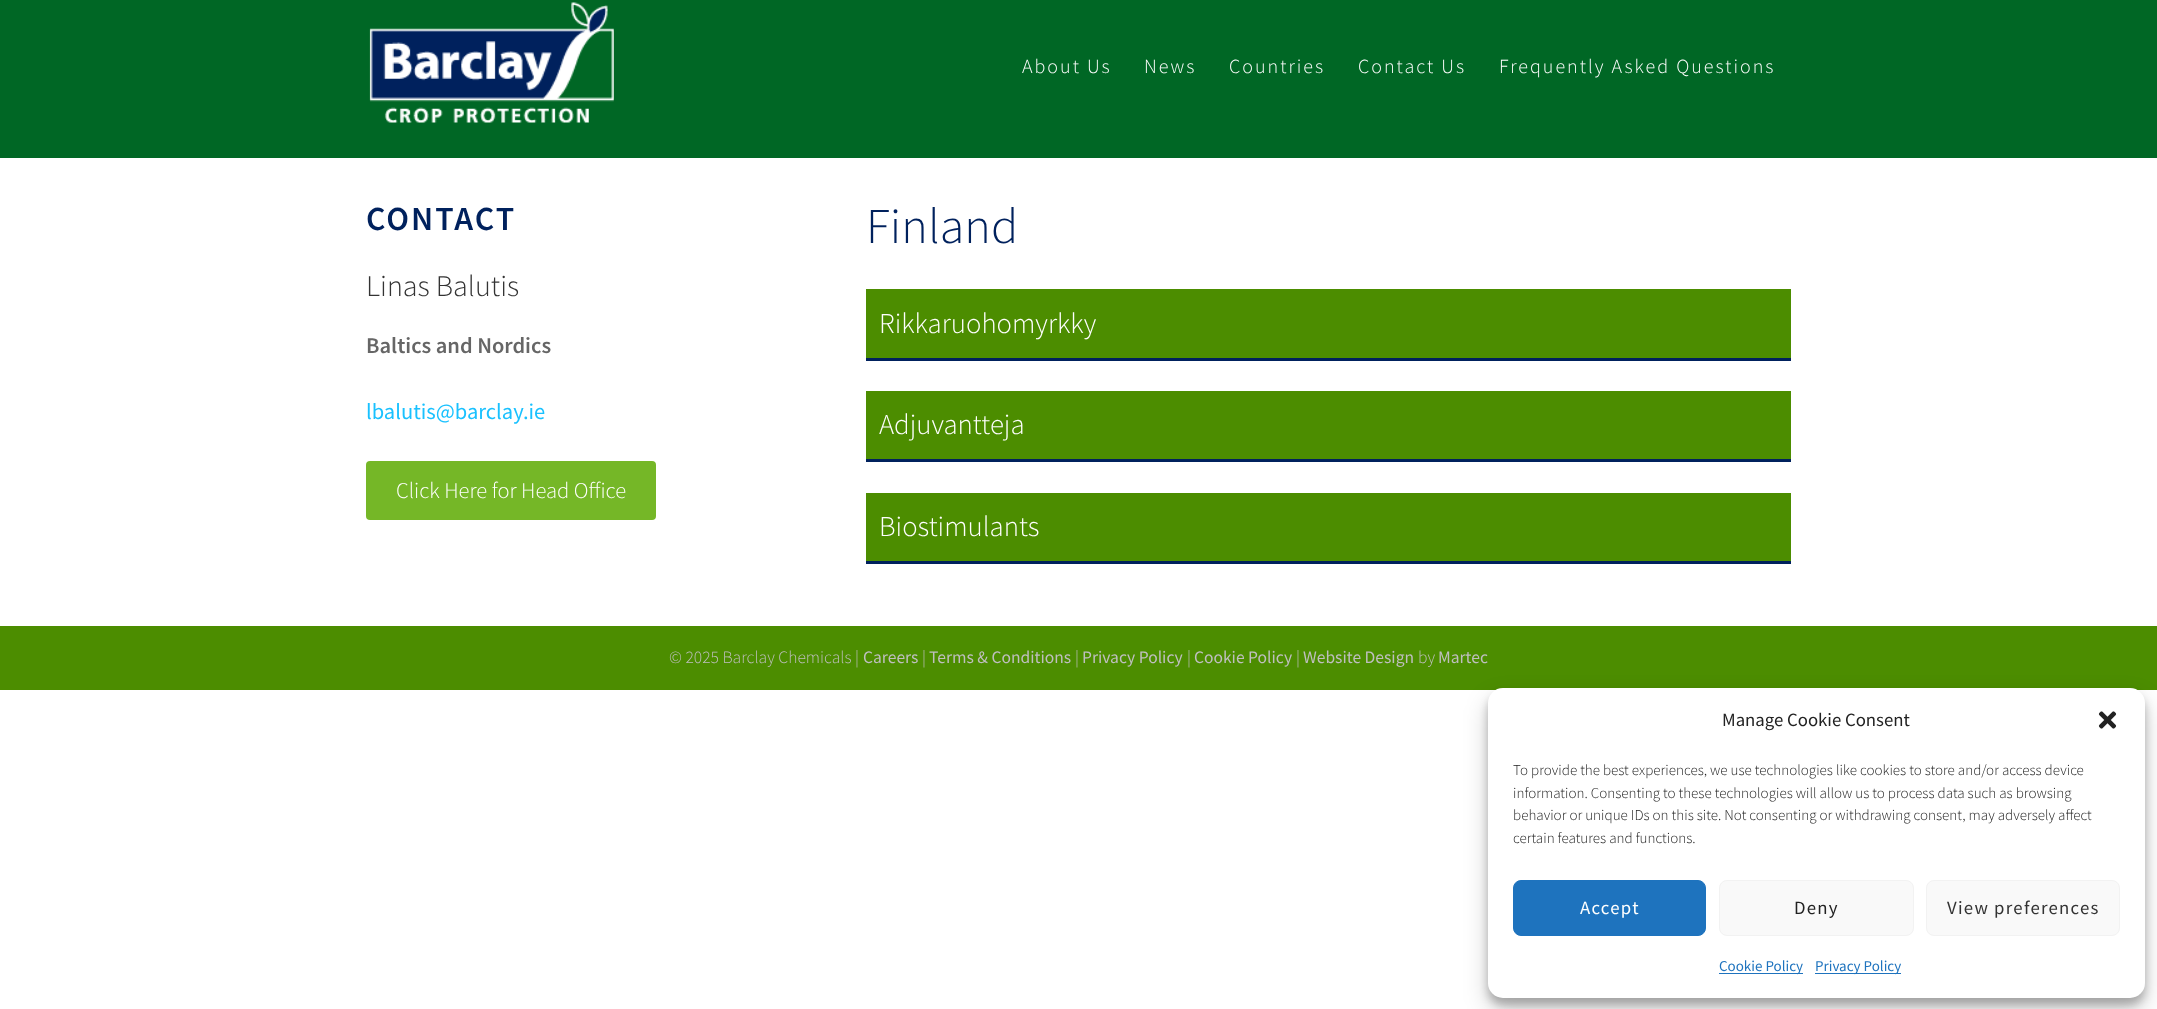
async function draw(canvas) {
  canvas.width = 2157;
  canvas.height = 1009;
  const ctx = canvas.getContext('2d');
  ctx.miterLimit = 4;
  ctx.fontKerning = 'normal';
  function label(s, x, y, font, color) {
    ctx.font = font;
    ctx.fillStyle = color;
    ctx.fillText(s, x, y);
  }
  function rect(x, y, w, h, color) {
    ctx.fillStyle = color;
    ctx.fillRect(x, y, w, h);
  }
  function roundedRect(x, y, w, h, r, color) {
    ctx.fillStyle = color;
    ctx.beginPath();
    ctx.roundRect(x, y, w, h, r);
    ctx.fill();
  }
  async function image(src, x, y, w, h) {
    const img = new Image();
    img.src = src;
    await img.decode();
    ctx.drawImage(img, x, y, w, h);
  }

  rect(0, 0, 2157, 1009, '#fff');
  rect(0, 0, 2157, 158, '#006725');
  await image('assets/img1.png', 369, 2, 245, 121);
  ctx.letterSpacing = '2px';
  label('About Us', 1022, 73, '300 20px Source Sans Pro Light', '#fff');
  label('News', 1144, 73, '300 20px Source Sans Pro Light', '#fff');
  label('Countries', 1229, 73, '300 20px Source Sans Pro Light', '#fff');
  label('Contact Us', 1358, 73, '300 20px Source Sans Pro Light', '#fff');
  label('Frequently Asked Questions', 1499, 73, '300 20px Source Sans Pro Light', '#fff');
  label('CONTACT', 366, 230, '600 33.75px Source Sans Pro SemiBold', '#00215d');
  ctx.letterSpacing = '0px';
  label('Linas Balutis', 366, 296, '300 30px Source Sans Pro Light', '#333');
  label('Baltics and Nordics', 366, 353, '600 22.5px Source Sans Pro SemiBold', '#666');
  label('lbalutis@barclay.ie', 366, 419, '22.5px Source Sans Pro', '#19c1ff');
  roundedRect(366, 461, 290, 59, 4, '#75b727');
  label('Click Here for Head Office', 396, 498, '300 22.5px Source Sans Pro Light', '#fff');
  label('Finland', 866, 243, '300 50px Source Sans Pro Light', '#00215d');
  rect(866, 289, 925, 69, '#4c8d00');
  rect(866, 358, 925, 3, '#00215d');
  label('Rikkaruohomyrkky', 879, 333, '300 28.75px Source Sans Pro Light', '#fff');
  rect(866, 391, 925, 68, '#4c8d00');
  rect(866, 459, 925, 3, '#00215d');
  label('Adjuvantteja', 879, 434, '300 28.75px Source Sans Pro Light', '#fff');
  rect(866, 493, 925, 68, '#4c8d00');
  rect(866, 561, 925, 3, '#00215d');
  label('Biostimulants', 879, 536, '300 28.75px Source Sans Pro Light', '#fff');
  rect(0, 626, 2157, 64, '#4c8d00');
  label('© 2025 Barclay Chemicals |', 669, 663, '300 17.5px Source Sans Pro Light', '#bfbfbf');
  label('Careers', 863, 663, '17.5px Source Sans Pro', '#bfbfbf');
  label('|', 922, 663, '300 17.5px Source Sans Pro Light', '#bfbfbf');
  label('Terms & Conditions', 929, 663, '17.5px Source Sans Pro', '#bfbfbf');
  label('|', 1075, 663, '300 17.5px Source Sans Pro Light', '#bfbfbf');
  label('Privacy Policy', 1082, 663, '17.5px Source Sans Pro', '#bfbfbf');
  label('|', 1187, 663, '300 17.5px Source Sans Pro Light', '#bfbfbf');
  label('Cookie Policy', 1194, 663, '17.5px Source Sans Pro', '#bfbfbf');
  label('|', 1296, 663, '300 17.5px Source Sans Pro Light', '#bfbfbf');
  label('Website Design', 1303, 663, '17.5px Source Sans Pro', '#bfbfbf');
  label('by', 1418, 663, '300 17.5px Source Sans Pro Light', '#bfbfbf');
  label('Martec', 1438, 663, '17.5px Source Sans Pro', '#bfbfbf');
  ctx.fillStyle = '#0000003b';
  ctx.filter = 'blur(4px)';
  ctx.beginPath();
  ctx.roundRect(1488, 695, 657, 310, 15);
  ctx.fill();
  ctx.filter = 'none';
  ctx.fillStyle = '#00000030';
  ctx.filter = 'blur(12.5px)';
  ctx.beginPath();
  ctx.roundRect(1488, 700, 657, 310, 15);
  ctx.fill();
  ctx.filter = 'none';
  roundedRect(1488, 688, 657, 310, 15, '#fff');
  label('Manage Cookie Consent', 1722, 726, '18.75px Source Sans Pro', '#222');
  await image('assets/img2.png', 2098, 711, 19, 18);
  label('To provide the best experiences, we use technologies like cookies to store and/or access device', 1513, 775, '300 15px Source Sans Pro Light', '#222');
  label('information. Consenting to these technologies will allow us to process data such as browsing', 1513, 798, '300 15px Source Sans Pro Light', '#222');
  label('behavior or unique IDs on this site. Not consenting or withdrawing consent, may adversely affect', 1513, 820, '300 15px Source Sans Pro Light', '#222');
  label('certain features and functions.', 1513, 843, '300 15px Source Sans Pro Light', '#222');
  ctx.fillStyle = '#1e73be';
  ctx.beginPath();
  ctx.roundRect(1513.5, 880.5, 192, 55, 7.5);
  ctx.fill();
  ctx.strokeStyle = '#1e73be';
  ctx.stroke();
  ctx.letterSpacing = '1.25px';
  label('Accept', 1580, 914, '18.75px Source Sans Pro', '#fff');
  ctx.fillStyle = '#f9f9f9';
  ctx.beginPath();
  ctx.roundRect(1719.5, 880.5, 194, 55, 7.5);
  ctx.fill();
  ctx.strokeStyle = '#f2f2f2';
  ctx.stroke();
  label('Deny', 1794, 914, '18.75px Source Sans Pro', '#222');
  ctx.fillStyle = '#f9f9f9';
  ctx.beginPath();
  ctx.roundRect(1926.5, 880.5, 193, 55, 7.5);
  ctx.fill();
  ctx.stroke();
  label('View preferences', 1947, 914, '18.75px Source Sans Pro', '#333');
  rect(1719, 973, 84, 1, '#1e73be');
  ctx.letterSpacing = '0px';
  label('Cookie Policy', 1719, 971, '15px Source Sans Pro', '#1e73be');
  rect(1815, 973, 86, 1, '#1e73be');
  label('Privacy Policy', 1815, 971, '15px Source Sans Pro', '#1e73be');
}

draw(document.querySelector('canvas'));
